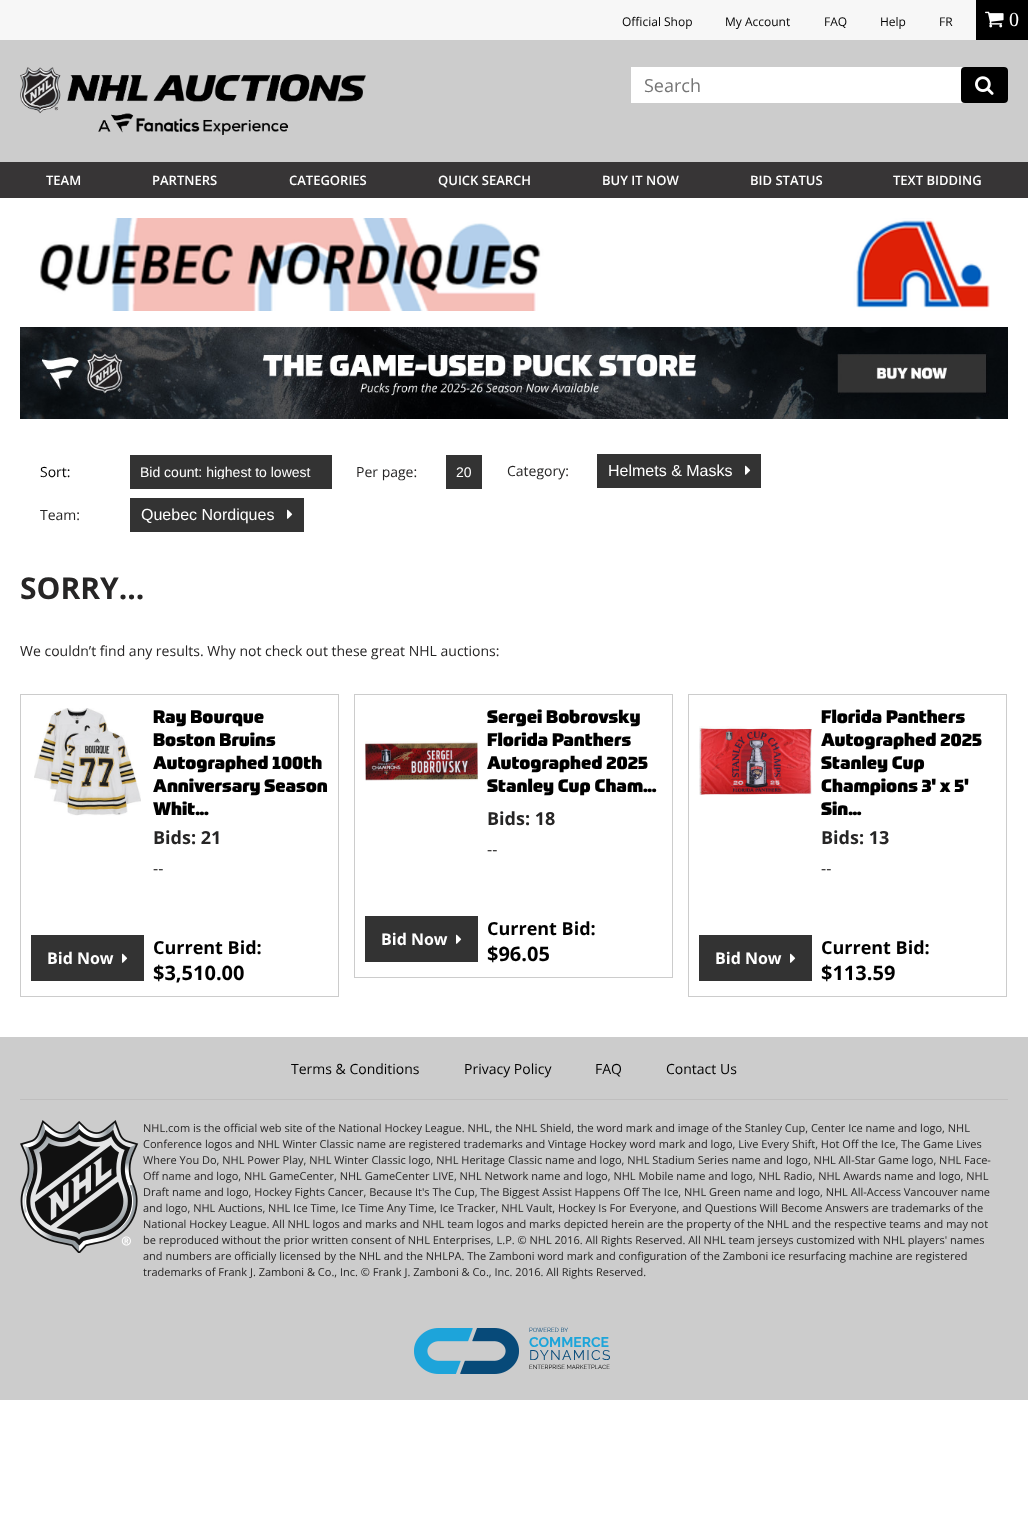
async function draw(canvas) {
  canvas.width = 1028;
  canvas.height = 1523;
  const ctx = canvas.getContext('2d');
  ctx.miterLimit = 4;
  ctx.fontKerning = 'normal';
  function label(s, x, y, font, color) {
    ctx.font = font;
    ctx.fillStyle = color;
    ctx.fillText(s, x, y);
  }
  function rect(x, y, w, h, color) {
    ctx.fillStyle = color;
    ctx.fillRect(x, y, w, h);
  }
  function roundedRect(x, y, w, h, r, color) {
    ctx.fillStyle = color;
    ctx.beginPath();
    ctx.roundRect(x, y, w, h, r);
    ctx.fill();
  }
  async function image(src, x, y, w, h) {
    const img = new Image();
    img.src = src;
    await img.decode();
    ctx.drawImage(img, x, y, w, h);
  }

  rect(0, 0, 1028, 1523, '#fff');
  rect(0, 0, 976, 40, '#f7f7f7');
  label('Official Shop', 622, 26, '12px Open Sans', '#000');
  label('My Account', 725, 26, '12px Open Sans', '#000');
  label('FAQ', 824, 26, '12px Open Sans', '#000');
  label('Help', 880, 26, '12px Open Sans', '#000');
  label('FR', 939, 26, '12px Open Sans', '#000');
  rect(976, 0, 52, 40, '#000');
  await image('assets/img1.png', 985, 11, 19, 17);
  label('0', 1009, 26, '20px Liberation Serif', '#fff');
  rect(0, 40, 1028, 122, '#ccc');
  await image('assets/img2.png', 20, 67, 346, 68);
  ctx.fillStyle = '#fff';
  ctx.beginPath();
  ctx.roundRect(631, 67, 377, 36, [0, 4, 4, 0]);
  ctx.fill();
  label('Search', 644, 92, '18px Open Sans', '#757575');
  roundedRect(961, 67, 47, 36, 4, '#000');
  await image('assets/img3.png', 975, 76, 19, 19);
  rect(0, 162, 1028, 36, '#373536');
  label('TEAM', 46, 185, '600 13px Open Sans', '#fff');
  label('PARTNERS', 152, 185, '600 13px Open Sans', '#fff');
  label('CATEGORIES', 289, 185, '600 13px Open Sans', '#fff');
  label('QUICK SEARCH', 438, 185, '600 13px Open Sans', '#fff');
  label('BUY IT NOW', 602, 185, '600 13px Open Sans', '#fff');
  label('BID STATUS', 750, 185, '600 13px Open Sans', '#fff');
  label('TEXT BIDDING', 893, 185, '600 13px Open Sans', '#fff');
  await image('assets/img4.png', 40, 218, 950, 93);
  await image('assets/img5.png', 20, 327, 988, 92);
  label('Sort:', 40, 477, '14px Open Sans', '#000');
  rect(130, 455, 202, 34, '#333');
  ctx.save();
  ctx.beginPath();
  ctx.rect(140, 465, 182, 14);
  ctx.clip();
  label('Bid count: highest to lowest', 140, 477, '14px Liberation Sans', '#fff');
  ctx.restore();
  label('Per page:', 356, 477, '14px Open Sans', '#262525');
  rect(446, 455, 36, 34, '#333');
  label('20', 456, 477, '14px Liberation Sans', '#fff');
  label('Category:', 507, 476, '14px Open Sans', '#262525');
  rect(597, 454, 164, 34, '#333');
  label('Helmets & Masks', 608, 476, '16px Liberation Sans', '#fff');
  await image('assets/img6.png', 745, 465, 6, 10);
  label('Team:', 40, 520, '14px Open Sans', '#262525');
  rect(130, 498, 174, 34, '#333');
  label('Quebec Nordiques', 141, 520, '16px Liberation Sans', '#fff');
  await image('assets/img6.png', 287, 509, 6, 10);
  label('SORRY...', 20, 599, 'bold 30px Open Sans', '#262525');
  label('We couldn’t find any results. Why not check out these great NHL auctions:', 20, 656, '14px Open Sans', '#262525');
  ctx.strokeStyle = '#ccc';
  ctx.strokeRect(20.5, 694.5, 318, 302);
  await image('assets/img7.png', 34, 708, 107, 108);
  label('Ray Bourque', 153, 723, '900 18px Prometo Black', '#000');
  label('Boston Bruins', 153, 746, '900 18px Prometo Black', '#000');
  label('Autographed 100th', 153, 769, '900 18px Prometo Black', '#000');
  label('Anniversary Season', 153, 792, '900 18px Prometo Black', '#000');
  label('Whit...', 153, 815, '900 18px Prometo Black', '#000');
  label('Bids: 21', 153, 844, 'bold 18px Open Sans', '#262525');
  label('--', 153, 874, '16px Open Sans', '#262525');
  rect(31, 935, 113, 46, '#333');
  label('Bid Now', 47, 964, 'bold 16px Open Sans', '#fff');
  await image('assets/img6.png', 122, 953, 6, 10);
  label('Current Bid:', 153, 954, 'bold 18px Open Sans', '#000');
  label('$3,510.00', 153, 980, 'bold 20px Open Sans', '#000');
  ctx.strokeRect(354.5, 694.5, 318, 283);
  await image('assets/img8.png', 365, 741, 113, 40);
  label('Sergei Bobrovsky', 487, 723, '900 18px Prometo Black', '#000');
  label('Florida Panthers', 487, 746, '900 18px Prometo Black', '#000');
  label('Autographed 2025', 487, 769, '900 18px Prometo Black', '#000');
  label('Stanley Cup Cham...', 487, 792, '900 18px Prometo Black', '#000');
  label('Bids: 18', 487, 825, 'bold 18px Open Sans', '#262525');
  label('--', 487, 855, '16px Open Sans', '#262525');
  rect(365, 916, 113, 46, '#333');
  label('Bid Now', 381, 945, 'bold 16px Open Sans', '#fff');
  await image('assets/img6.png', 456, 934, 6, 10);
  label('Current Bid:', 487, 935, 'bold 18px Open Sans', '#000');
  label('$96.05', 487, 961, 'bold 20px Open Sans', '#000');
  ctx.strokeRect(688.5, 694.5, 318, 302);
  await image('assets/img9.png', 699, 726, 113, 69);
  label('Florida Panthers', 821, 723, '900 18px Prometo Black', '#000');
  label('Autographed 2025', 821, 746, '900 18px Prometo Black', '#000');
  label('Stanley Cup', 821, 769, '900 18px Prometo Black', '#000');
  label('Champions 3\' x 5\'', 821, 792, '900 18px Prometo Black', '#000');
  label('Sin...', 821, 815, '900 18px Prometo Black', '#000');
  label('Bids: 13', 821, 844, 'bold 18px Open Sans', '#262525');
  label('--', 821, 874, '16px Open Sans', '#262525');
  rect(699, 935, 113, 46, '#333');
  label('Bid Now', 715, 964, 'bold 16px Open Sans', '#fff');
  await image('assets/img6.png', 790, 953, 6, 10);
  label('Current Bid:', 821, 954, 'bold 18px Open Sans', '#000');
  label('$113.59', 821, 980, 'bold 20px Open Sans', '#000');
  rect(0, 1037, 1028, 363, '#ccc');
  label('Terms & Conditions', 291, 1074, '14px Open Sans', '#000');
  label('Privacy Policy', 464, 1074, '14px Open Sans', '#000');
  label('FAQ', 595, 1074, '14px Open Sans', '#000');
  label('Contact Us', 666, 1074, '14px Open Sans', '#000');
  rect(20, 1099, 988, 1, '#bfbebe');
  await image('assets/img10.png', 20, 1120, 119, 133);
  label('NHL.com is the official web site of the National Hockey League. NHL, the NHL Shield, the word mark and image of the Stanley Cup, Center Ice name and logo, NHL', 143, 1132, '11px Open Sans', '#262525');
  label('Conference logos and NHL Winter Classic name are registered trademarks and Vintage Hockey word mark and logo, Live Every Shift, Hot Off the Ice, The Game Lives', 143, 1148, '11px Open Sans', '#262525');
  label('Where You Do, NHL Power Play, NHL Winter Classic logo, NHL Heritage Classic name and logo, NHL Stadium Series name and logo, NHL All-Star Game logo, NHL Face-', 143, 1164, '11px Open Sans', '#262525');
  label('Off name and logo, NHL GameCenter, NHL GameCenter LIVE, NHL Network name and logo, NHL Mobile name and logo, NHL Radio, NHL Awards name and logo, NHL', 143, 1180, '11px Open Sans', '#262525');
  label('Draft name and logo, Hockey Fights Cancer, Because It\'s The Cup, The Biggest Assist Happens Off The Ice, NHL Green name and logo, NHL All-Access Vancouver name', 143, 1196, '11px Open Sans', '#262525');
  label('and logo, NHL Auctions, NHL Ice Time, Ice Time Any Time, Ice Tracker, NHL Vault, Hockey Is For Everyone, and Questions Will Become Answers are trademarks of the', 143, 1212, '11px Open Sans', '#262525');
  label('National Hockey League. All NHL logos and marks and NHL team logos and marks depicted herein are the property of the NHL and the respective teams and may not', 143, 1228, '11px Open Sans', '#262525');
  label('be reproduced without the prior written consent of NHL Enterprises, L.P. © NHL 2016. All Rights Reserved. All NHL team jerseys customized with NHL players\' names', 143, 1244, '11px Open Sans', '#262525');
  label('and numbers are officially licensed by the NHL and the NHLPA. The Zamboni word mark and configuration of the Zamboni ice resurfacing machine are registered', 143, 1260, '11px Open Sans', '#262525');
  label('trademarks of Frank J. Zamboni & Co., Inc. © Frank J. Zamboni & Co., Inc. 2016. All Rights Reserved.', 143, 1276, '11px Open Sans', '#262525');
  await image('assets/img11.png', 414, 1328, 105, 46);
  label('POWERED BY', 529, 1332, '6px Raleway', '#084b7a');
  label('COMMERCE', 529, 1347, 'bold 14px Raleway', '#1da5da');
  ctx.letterSpacing = '1.25px';
  label('DYNAMICS', 529, 1360, '14px Raleway', '#084b7a');
  ctx.letterSpacing = '0px';
  label('ENTERPRISE MARKETPLACE', 529, 1369, '6px Raleway', '#000');
}

draw(document.querySelector('canvas'));
